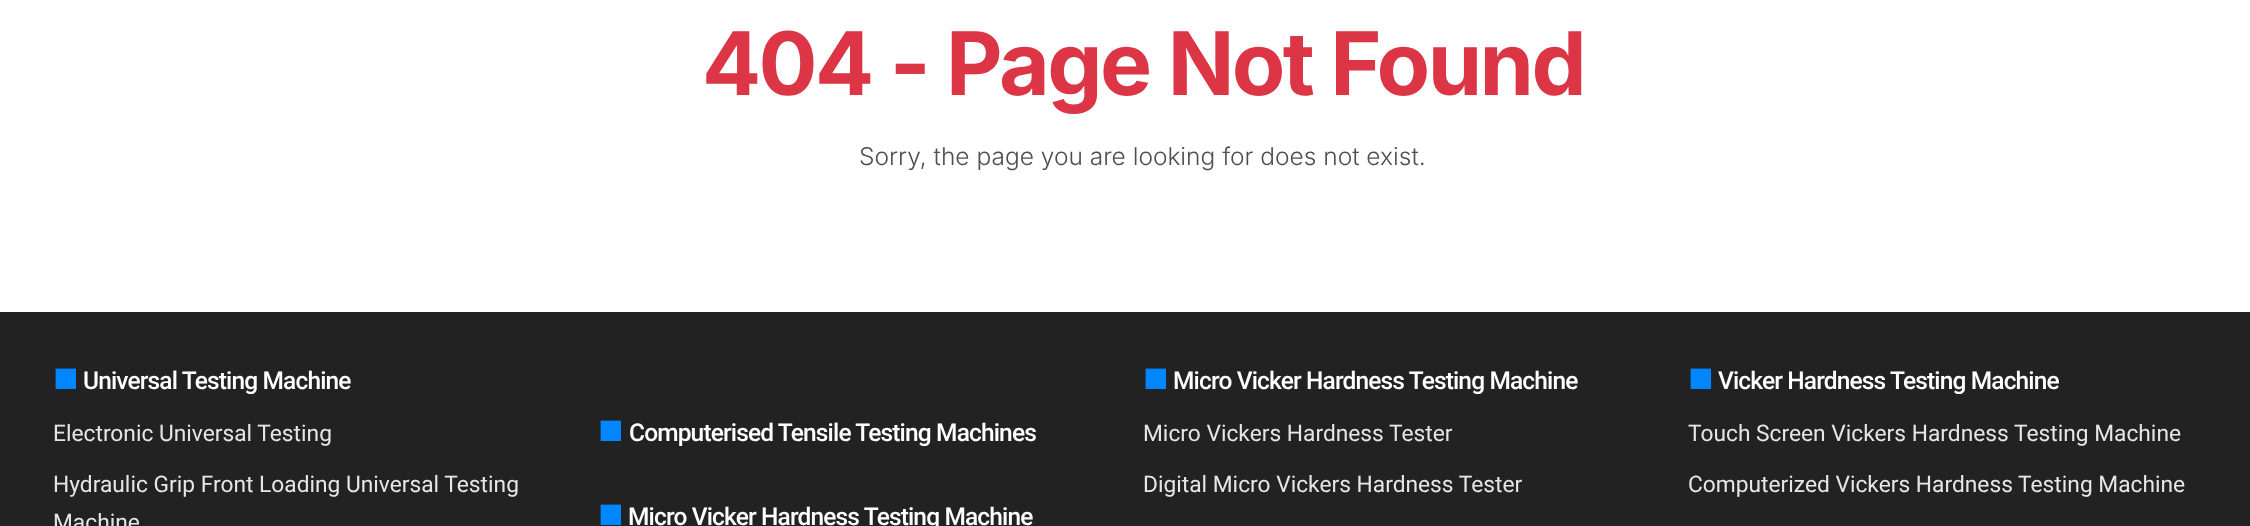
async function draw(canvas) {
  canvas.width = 2250;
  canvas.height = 526;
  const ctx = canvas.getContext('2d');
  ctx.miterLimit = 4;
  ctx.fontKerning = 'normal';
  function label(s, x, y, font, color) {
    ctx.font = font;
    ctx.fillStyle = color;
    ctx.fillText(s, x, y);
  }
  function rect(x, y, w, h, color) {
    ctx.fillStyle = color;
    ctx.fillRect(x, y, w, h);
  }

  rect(0, 0, 2250, 526, '#fff');
  ctx.letterSpacing = '-2.6px';
  label('404 - Page Not Found', 702, 95, 'bold 87.5px Inter', '#dc3545');
  ctx.letterSpacing = '0px';
  label('Sorry, the page you are looking for does not exist.', 859, 165, '300 24.5px Inter', '#4f4f4f');
  rect(0, 312, 2250, 214, '#222');
  ctx.letterSpacing = '-0.85px';
  label('■', 53, 389, '500 28px Inter', '#0087ff');
  label('Universal Testing Machine', 83, 389, '500 24.5px Roboto', '#fff');
  ctx.letterSpacing = '0px';
  label('Electronic Universal Testing', 53, 441, '22.75px Roboto', '#e6e6e6');
  label('Hydraulic Grip Front Loading Universal Testing', 53, 492, '22.75px Roboto', '#e6e6e6');
  label('Machine', 53, 530, '22.75px Roboto', '#e6e6e6');
  ctx.letterSpacing = '-0.85px';
  label('■', 598, 441, '500 28px Inter', '#0087ff');
  label('Computerised Tensile Testing Machines', 629, 441, '500 24.5px Roboto', '#fff');
  label('■', 598, 525, '500 28px Inter', '#0087ff');
  label('Micro Vicker Hardness Testing Machine', 628, 525, '500 24.5px Roboto', '#fff');
  label('■', 1143, 389, '500 28px Inter', '#0087ff');
  label('Micro Vicker Hardness Testing Machine', 1173, 389, '500 24.5px Roboto', '#fff');
  ctx.letterSpacing = '0px';
  label('Micro Vickers Hardness Tester', 1143, 441, '22.75px Roboto', '#e6e6e6');
  label('Digital Micro Vickers Hardness Tester', 1143, 492, '22.75px Roboto', '#e6e6e6');
  ctx.letterSpacing = '-0.85px';
  label('■', 1688, 389, '500 28px Inter', '#0087ff');
  label('Vicker Hardness Testing Machine', 1718, 389, '500 24.5px Roboto', '#fff');
  ctx.letterSpacing = '0px';
  label('Touch Screen Vickers Hardness Testing Machine', 1688, 441, '22.75px Roboto', '#e6e6e6');
  label('Computerized Vickers Hardness Testing Machine', 1688, 492, '22.75px Roboto', '#e6e6e6');
}

draw(document.querySelector('canvas'));
